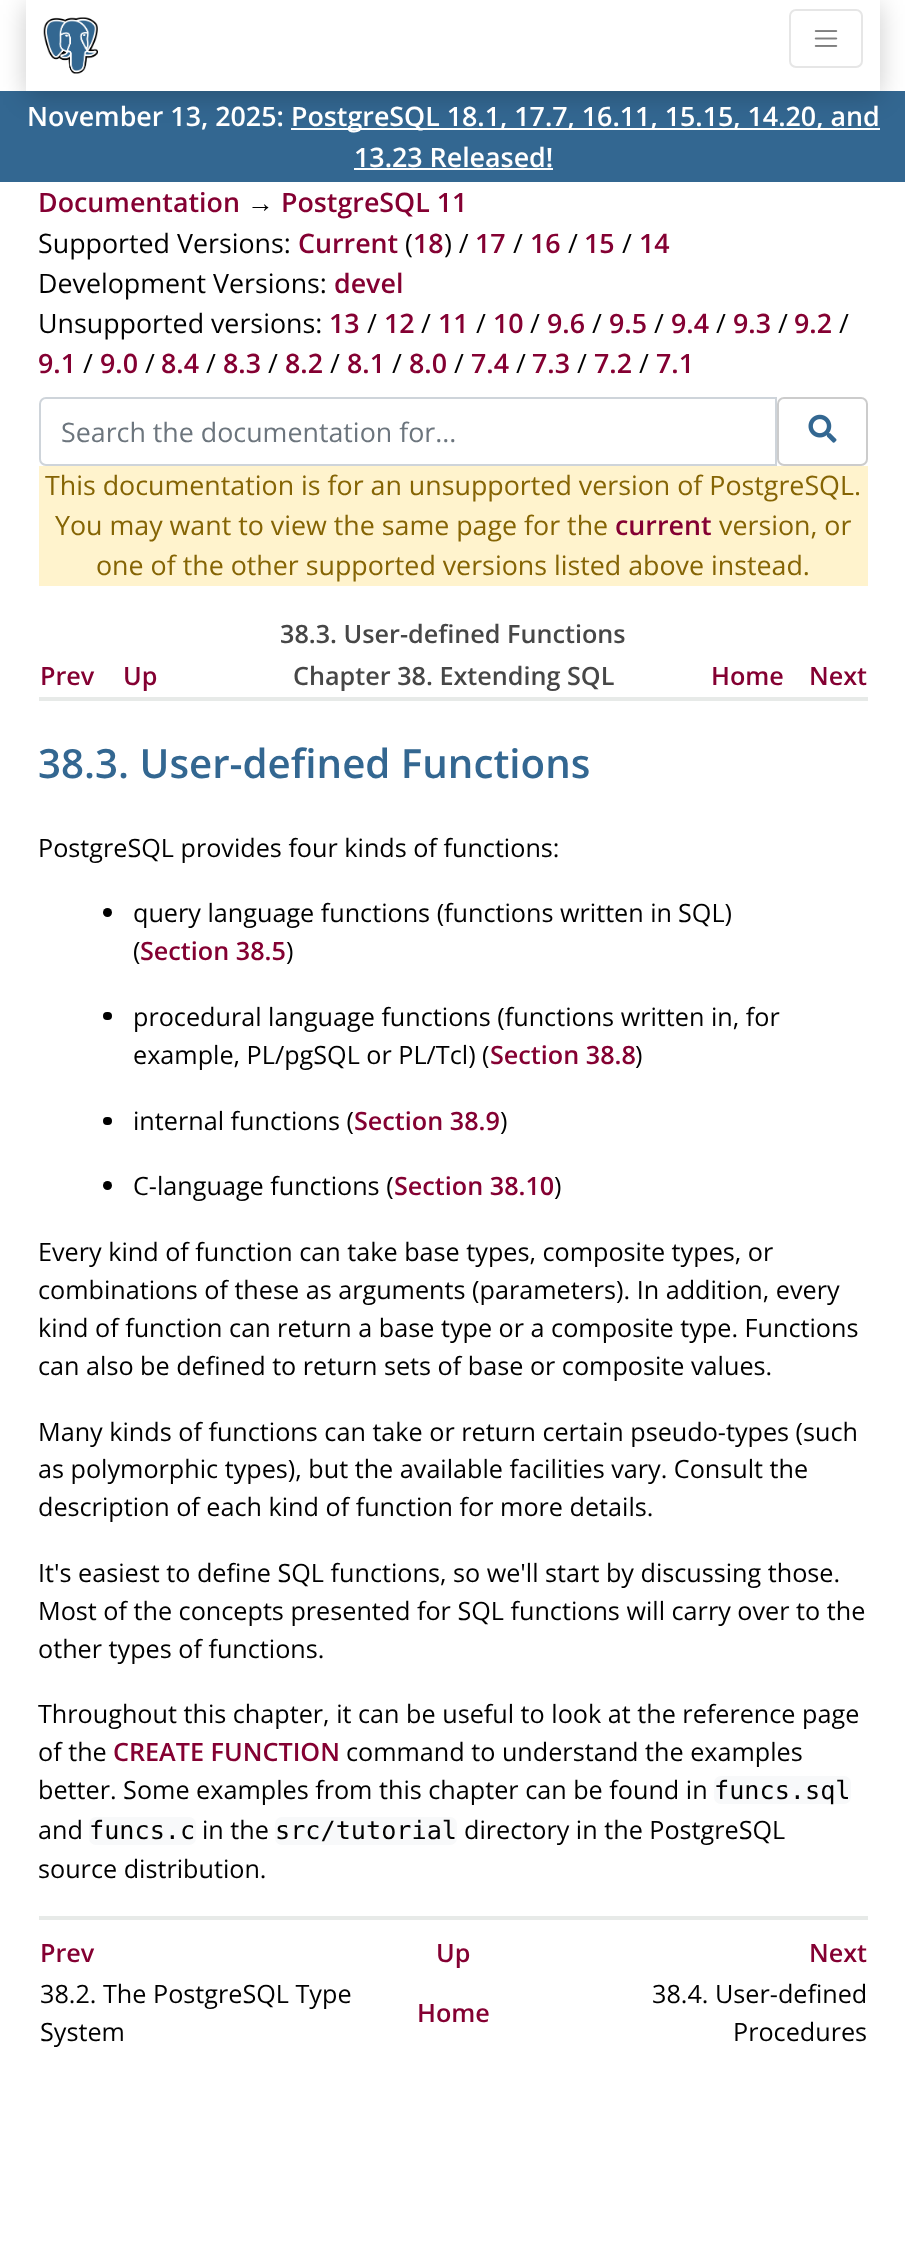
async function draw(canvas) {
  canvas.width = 905;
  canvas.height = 2253;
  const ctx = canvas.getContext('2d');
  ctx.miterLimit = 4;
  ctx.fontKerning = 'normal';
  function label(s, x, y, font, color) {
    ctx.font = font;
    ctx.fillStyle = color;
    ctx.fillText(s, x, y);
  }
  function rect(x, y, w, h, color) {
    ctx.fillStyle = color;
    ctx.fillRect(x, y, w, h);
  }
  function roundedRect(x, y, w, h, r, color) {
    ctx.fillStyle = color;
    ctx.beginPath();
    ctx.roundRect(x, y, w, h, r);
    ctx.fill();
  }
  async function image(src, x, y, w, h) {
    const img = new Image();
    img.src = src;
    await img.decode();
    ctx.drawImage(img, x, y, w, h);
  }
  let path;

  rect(0, 0, 905, 2253, '#fff');
  rect(0, 91, 905, 91, '#336791');
  ctx.save();
  path = new Path2D('M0 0H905V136H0ZM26 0H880V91H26Z');
  ctx.clip(path, 'evenodd');
  ctx.fillStyle = '#00000033';
  ctx.filter = 'blur(13px)';
  ctx.beginPath();
  ctx.rect(26, 5, 854, 91);
  ctx.fill();
  ctx.filter = 'none';
  ctx.restore();
  await image('assets/img1.png', 43, 17, 55, 57);
  ctx.beginPath();
  ctx.roundRect(790, 10, 72, 57, 6);
  ctx.strokeStyle = '#e6e6e6';
  ctx.lineWidth = 2;
  ctx.stroke();
  await image('assets/img2.png', 814, 30, 24, 17);
  label('November 13, 2025:', 27, 126, '600 26.8px Open Sans', '#fff');
  rect(291, 128, 589, 2, '#fff');
  label('PostgreSQL 18.1, 17.7, 16.11, 15.15, 14.20, and', 291, 126, '600 26.8px Open Sans', '#fff');
  label('13.23 Released!', 354, 167, '600 26.8px Open Sans', '#fff');
  rect(354, 168, 199, 2, '#fff');
  label('Documentation', 38, 212, '600 26.8px Open Sans', '#840032');
  label('→', 247, 212, '26.8px Liberation Sans', '#000');
  label('PostgreSQL 11', 281, 212, '600 26.8px Open Sans', '#840032');
  label('Supported Versions:', 38, 253, '26.8px Open Sans', '#000');
  label('Current', 298, 253, '600 26.8px Open Sans', '#840032');
  label('(', 405, 253, '26.8px Open Sans', '#000');
  label('18', 413, 253, '600 26.8px Open Sans', '#840032');
  label(') /', 444, 253, '26.8px Open Sans', '#000');
  label('17', 475, 253, '600 26.8px Open Sans', '#840032');
  label('/', 513, 253, '26.8px Open Sans', '#000');
  label('16', 530, 253, '600 26.8px Open Sans', '#840032');
  label('/', 568, 253, '26.8px Open Sans', '#000');
  label('15', 584, 253, '600 26.8px Open Sans', '#840032');
  label('/', 622, 253, '26.8px Open Sans', '#000');
  label('14', 639, 253, '600 26.8px Open Sans', '#840032');
  label('Development Versions:', 38, 293, '26.8px Open Sans', '#000');
  label('devel', 334, 293, '600 26.8px Open Sans', '#840032');
  label('Unsupported versions:', 38, 333, '26.8px Open Sans', '#000');
  label('13', 329, 333, '600 26.8px Open Sans', '#840032');
  label('/', 367, 333, '26.8px Open Sans', '#000');
  label('12', 384, 333, '600 26.8px Open Sans', '#840032');
  label('/', 421, 333, '26.8px Open Sans', '#000');
  label('11', 438, 333, '600 26.8px Open Sans', '#840032');
  label('/', 476, 333, '26.8px Open Sans', '#000');
  label('10', 493, 333, '600 26.8px Open Sans', '#840032');
  label('/', 530, 333, '26.8px Open Sans', '#000');
  label('9.6', 547, 333, '600 26.8px Open Sans', '#840032');
  label('/', 592, 333, '26.8px Open Sans', '#000');
  label('9.5', 609, 333, '600 26.8px Open Sans', '#840032');
  label('/', 654, 333, '26.8px Open Sans', '#000');
  label('9.4', 671, 333, '600 26.8px Open Sans', '#840032');
  label('/', 716, 333, '26.8px Open Sans', '#000');
  label('9.3', 733, 333, '600 26.8px Open Sans', '#840032');
  label('/', 778, 333, '26.8px Open Sans', '#000');
  label('9.2', 794, 333, '600 26.8px Open Sans', '#840032');
  label('/', 839, 333, '26.8px Open Sans', '#000');
  label('9.1', 38, 373, '600 26.8px Open Sans', '#840032');
  label('/', 83, 373, '26.8px Open Sans', '#000');
  label('9.0', 100, 373, '600 26.8px Open Sans', '#840032');
  label('/', 145, 373, '26.8px Open Sans', '#000');
  label('8.4', 161, 373, '600 26.8px Open Sans', '#840032');
  label('/', 206, 373, '26.8px Open Sans', '#000');
  label('8.3', 223, 373, '600 26.8px Open Sans', '#840032');
  label('/', 268, 373, '26.8px Open Sans', '#000');
  label('8.2', 285, 373, '600 26.8px Open Sans', '#840032');
  label('/', 330, 373, '26.8px Open Sans', '#000');
  label('8.1', 347, 373, '600 26.8px Open Sans', '#840032');
  label('/', 392, 373, '26.8px Open Sans', '#000');
  label('8.0', 409, 373, '600 26.8px Open Sans', '#840032');
  label('/', 454, 373, '26.8px Open Sans', '#000');
  label('7.4', 471, 373, '600 26.8px Open Sans', '#840032');
  label('/', 516, 373, '26.8px Open Sans', '#000');
  label('7.3', 532, 373, '600 26.8px Open Sans', '#840032');
  label('/', 577, 373, '26.8px Open Sans', '#000');
  label('7.2', 594, 373, '600 26.8px Open Sans', '#840032');
  label('/', 639, 373, '26.8px Open Sans', '#000');
  label('7.1', 656, 373, '600 26.8px Open Sans', '#840032');
  ctx.beginPath();
  ctx.roundRect(40, 398, 736, 67, [6, 0, 0, 6]);
  ctx.strokeStyle = '#ced4da';
  ctx.stroke();
  label('Search the documentation for...', 61, 442, '26.8px Open Sans', '#6c757d');
  ctx.beginPath();
  ctx.roundRect(778, 398, 89, 67, 6);
  ctx.strokeStyle = '#ccc';
  ctx.stroke();
  await image('assets/img3.png', 808, 414, 29, 29);
  rect(39, 466, 829, 120, '#fff3cd');
  label('This documentation is for an unsupported version of PostgreSQL.', 45, 495, '26.8px Open Sans', '#856404');
  label('You may want to view the same page for the', 55, 535, '26.8px Open Sans', '#856404');
  label('current', 615, 535, '600 26.8px Open Sans', '#840032');
  label('version, or', 719, 535, '26.8px Open Sans', '#856404');
  label('one of the other supported versions listed above instead.', 96, 575, '26.8px Open Sans', '#856404');
  label('38.3. User-defined Functions', 280, 643, '600 25.2px Open Sans', '#474747');
  label('Prev', 40, 685, '600 25.2px Open Sans', '#840032');
  label('Up', 123, 685, '600 25.2px Open Sans', '#840032');
  label('Chapter 38. Extending SQL', 293, 685, '600 25.2px Open Sans', '#474747');
  label('Home', 711, 685, '600 25.2px Open Sans', '#840032');
  label('Next', 809, 685, '600 25.2px Open Sans', '#840032');
  rect(39, 697, 829, 4, '#e7eae8');
  label('38.3. User-defined Functions', 38, 778, '600 40.25px Open Sans', '#336791');
  label('PostgreSQL provides four kinds of functions:', 38, 857, '25.2px Open Sans', '#000');
  ctx.beginPath();
  ctx.arc(107.5, 912.5, 4.5, 0, 2 * Math.PI);
  ctx.fill();
  label('query language functions (functions written in', 133, 922, '25.2px Open Sans', '#000');
  label('SQL)', 678, 922, '25.2px Open Sans', '#000');
  label('(', 133, 960, '25.2px Open Sans', '#000');
  label('Section 38.5', 140, 960, '600 25.2px Open Sans', '#840032');
  label(')', 286, 960, '25.2px Open Sans', '#000');
  roundedRect(103, 1012, 9, 8, 4, '#000');
  label('procedural language functions (functions written in, for', 133, 1026, '25.2px Open Sans', '#000');
  label('example, PL/pgSQL or PL/Tcl) (', 133, 1064, '25.2px Open Sans', '#000');
  label('Section 38.8', 490, 1064, '600 25.2px Open Sans', '#840032');
  label(')', 635, 1064, '25.2px Open Sans', '#000');
  roundedRect(103, 1117, 9, 8, 4, '#000');
  label('internal functions (', 133, 1130, '25.2px Open Sans', '#000');
  label('Section 38.9', 354, 1130, '600 25.2px Open Sans', '#840032');
  label(')', 500, 1130, '25.2px Open Sans', '#000');
  ctx.beginPath();
  ctx.arc(107.5, 1185.5, 4.5, 0, 2 * Math.PI);
  ctx.fill();
  label('C-language functions (', 133, 1195, '25.2px Open Sans', '#000');
  label('Section 38.10', 394, 1195, '600 25.2px Open Sans', '#840032');
  label(')', 554, 1195, '25.2px Open Sans', '#000');
  label('Every kind of function can take base types, composite types, or', 38, 1261, '25.2px Open Sans', '#000');
  label('combinations of these as arguments (parameters). In addition, every', 38, 1299, '25.2px Open Sans', '#000');
  label('kind of function can return a base type or a composite type. Functions', 38, 1337, '25.2px Open Sans', '#000');
  label('can also be defined to return sets of base or composite values.', 38, 1375, '25.2px Open Sans', '#000');
  label('Many kinds of functions can take or return certain pseudo-types (such', 38, 1441, '25.2px Open Sans', '#000');
  label('as polymorphic types), but the available facilities vary. Consult the', 38, 1478, '25.2px Open Sans', '#000');
  label('description of each kind of function for more details.', 38, 1516, '25.2px Open Sans', '#000');
  label('It\'s easiest to define SQL functions, so we\'ll start by discussing those.', 38, 1582, '25.2px Open Sans', '#000');
  label('Most of the concepts presented for SQL functions will carry over to the', 38, 1620, '25.2px Open Sans', '#000');
  label('other types of functions.', 38, 1658, '25.2px Open Sans', '#000');
  label('Throughout this chapter, it can be useful to look at the reference page', 38, 1723, '25.2px Open Sans', '#000');
  label('of the', 38, 1761, '25.2px Open Sans', '#000');
  label('CREATE FUNCTION', 113, 1761, '600 25.2px Open Sans', '#840032');
  label('command to understand the examples', 346, 1761, '25.2px Open Sans', '#000');
  label('better. Some examples from this chapter can be found in', 38, 1799, '25.2px Open Sans', '#000');
  roundedRect(714, 1776, 137, 28, 7, '#f8f9fa');
  label('funcs.sql', 714, 1799, '25.2px DejaVu Sans Mono', '#000');
  label('and', 38, 1839, '25.2px Open Sans', '#000');
  roundedRect(89, 1817, 107, 28, 7, '#f8f9fa');
  label('funcs.c', 89, 1839, '25.2px DejaVu Sans Mono', '#000');
  label('in the', 202, 1839, '25.2px Open Sans', '#000');
  roundedRect(275, 1817, 182, 28, 7, '#f8f9fa');
  label('src/tutorial', 275, 1839, '25.2px DejaVu Sans Mono', '#000');
  label('directory in the PostgreSQL', 464, 1839, '25.2px Open Sans', '#000');
  label('source distribution.', 38, 1878, '25.2px Open Sans', '#000');
  rect(39, 1916, 829, 4, '#e7eae8');
  label('Prev', 40, 1962, '600 25.2px Open Sans', '#840032');
  label('Up', 436, 1962, '600 25.2px Open Sans', '#840032');
  label('Next', 809, 1962, '600 25.2px Open Sans', '#840032');
  label('38.2. The PostgreSQL Type', 40, 2003, '25.2px Open Sans', '#000');
  label('System', 40, 2041, '25.2px Open Sans', '#000');
  label('Home', 417, 2022, '600 25.2px Open Sans', '#840032');
  label('38.4. User-defined', 652, 2003, '25.2px Open Sans', '#000');
  label('Procedures', 733, 2041, '25.2px Open Sans', '#000');
}

draw(document.querySelector('canvas'));
